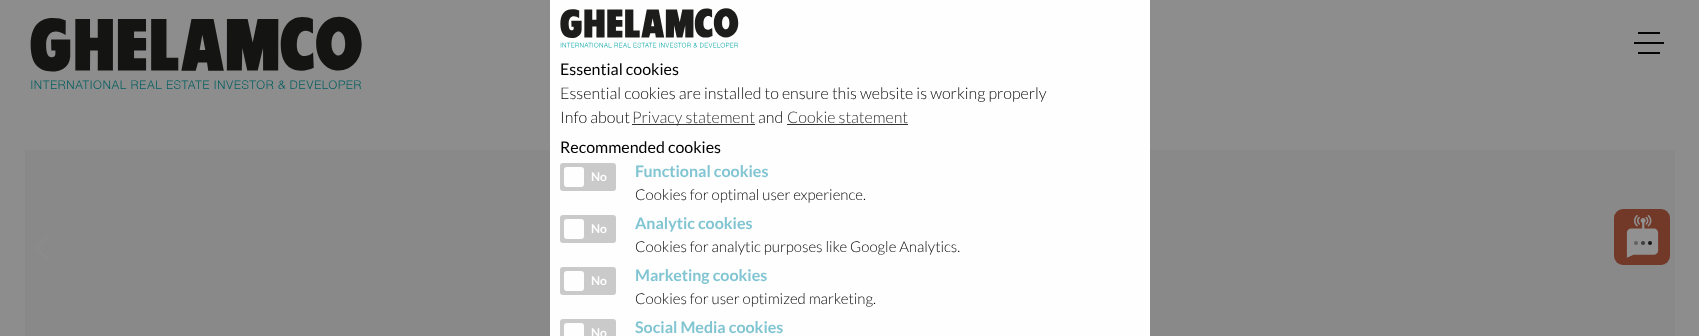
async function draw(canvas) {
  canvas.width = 1699;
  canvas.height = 336;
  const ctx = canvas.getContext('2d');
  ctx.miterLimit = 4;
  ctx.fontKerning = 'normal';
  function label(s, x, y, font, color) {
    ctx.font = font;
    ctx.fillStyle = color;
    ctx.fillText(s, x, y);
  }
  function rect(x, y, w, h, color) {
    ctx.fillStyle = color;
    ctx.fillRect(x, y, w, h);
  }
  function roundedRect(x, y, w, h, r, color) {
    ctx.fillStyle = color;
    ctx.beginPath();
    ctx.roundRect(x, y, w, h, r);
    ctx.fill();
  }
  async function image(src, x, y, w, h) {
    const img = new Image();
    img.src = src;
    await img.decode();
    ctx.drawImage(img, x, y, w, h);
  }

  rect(0, 0, 1699, 336, '#8d8d8d');
  await image('assets/img1.png', 30, 16, 332, 73);
  rect(1634, 42, 30, 2, '#050505');
  rect(1638, 32, 22, 2, '#050505');
  rect(1638, 52, 22, 2, '#050505');
  rect(25, 150, 1650, 186, '#898989');
  rect(550, 0, 600, 336, '#fefefe');
  await image('assets/img2.png', 560, 8, 179, 40);
  label('Essential cookies', 560, 75, '16px Lato', '#000');
  label('Essential cookies are installed to ensure this website is working properly', 560, 99, '300 16px Lato', '#0a0a0a');
  label('Info about', 560, 123, '300 16px Lato', '#0a0a0a');
  rect(632, 124, 123, 1, '#333');
  label('Privacy statement', 632, 123, '300 16px Lato', '#333');
  label('and', 758, 123, '300 16px Lato', '#0a0a0a');
  label('Cookie statement', 787, 123, '300 16px Lato', '#333');
  rect(787, 124, 121, 1, '#333');
  label('Recommended cookies', 560, 153, '16px Lato', '#000');
  roundedRect(560, 163, 56, 28, 3, '#cacaca');
  roundedRect(564, 167, 20, 20, 3, '#fefefe');
  label('No', 591, 181, 'bold 12px Lato', '#fefefe');
  label('Functional cookies', 635, 177, 'bold 16px Lato', '#81c5d2');
  label('Cookies for optimal user experience.', 635, 200, '300 15px Lato', '#0a0a0a');
  roundedRect(560, 215, 56, 28, 3, '#cacaca');
  roundedRect(564, 219, 20, 20, 3, '#fefefe');
  label('No', 591, 233, 'bold 12px Lato', '#fefefe');
  label('Analytic cookies', 635, 229, 'bold 16px Lato', '#81c5d2');
  label('Cookies for analytic purposes like Google Analytics.', 635, 252, '300 15px Lato', '#0a0a0a');
  roundedRect(560, 267, 56, 28, 3, '#cacaca');
  roundedRect(564, 271, 20, 20, 3, '#fefefe');
  label('No', 591, 285, 'bold 12px Lato', '#fefefe');
  label('Marketing cookies', 635, 281, 'bold 16px Lato', '#81c5d2');
  label('Cookies for user optimized marketing.', 635, 304, '300 15px Lato', '#0a0a0a');
  ctx.fillStyle = '#cacaca';
  ctx.beginPath();
  ctx.roundRect(560, 319, 56, 17, [3, 3, 0, 0]);
  ctx.fill();
  ctx.fillStyle = '#fefefe';
  ctx.beginPath();
  ctx.roundRect(564, 323, 20, 13, [3, 3, 0, 0]);
  ctx.fill();
  label('No', 591, 337, 'bold 12px Lato', '#fefefe');
  label('Social Media cookies', 635, 333, 'bold 16px Lato', '#81c5d2');
  await image('assets/img3.png', 36, 234, 14, 27);
  await image('assets/img4.png', 1614, 209, 56, 56);
}

draw(document.querySelector('canvas'));
